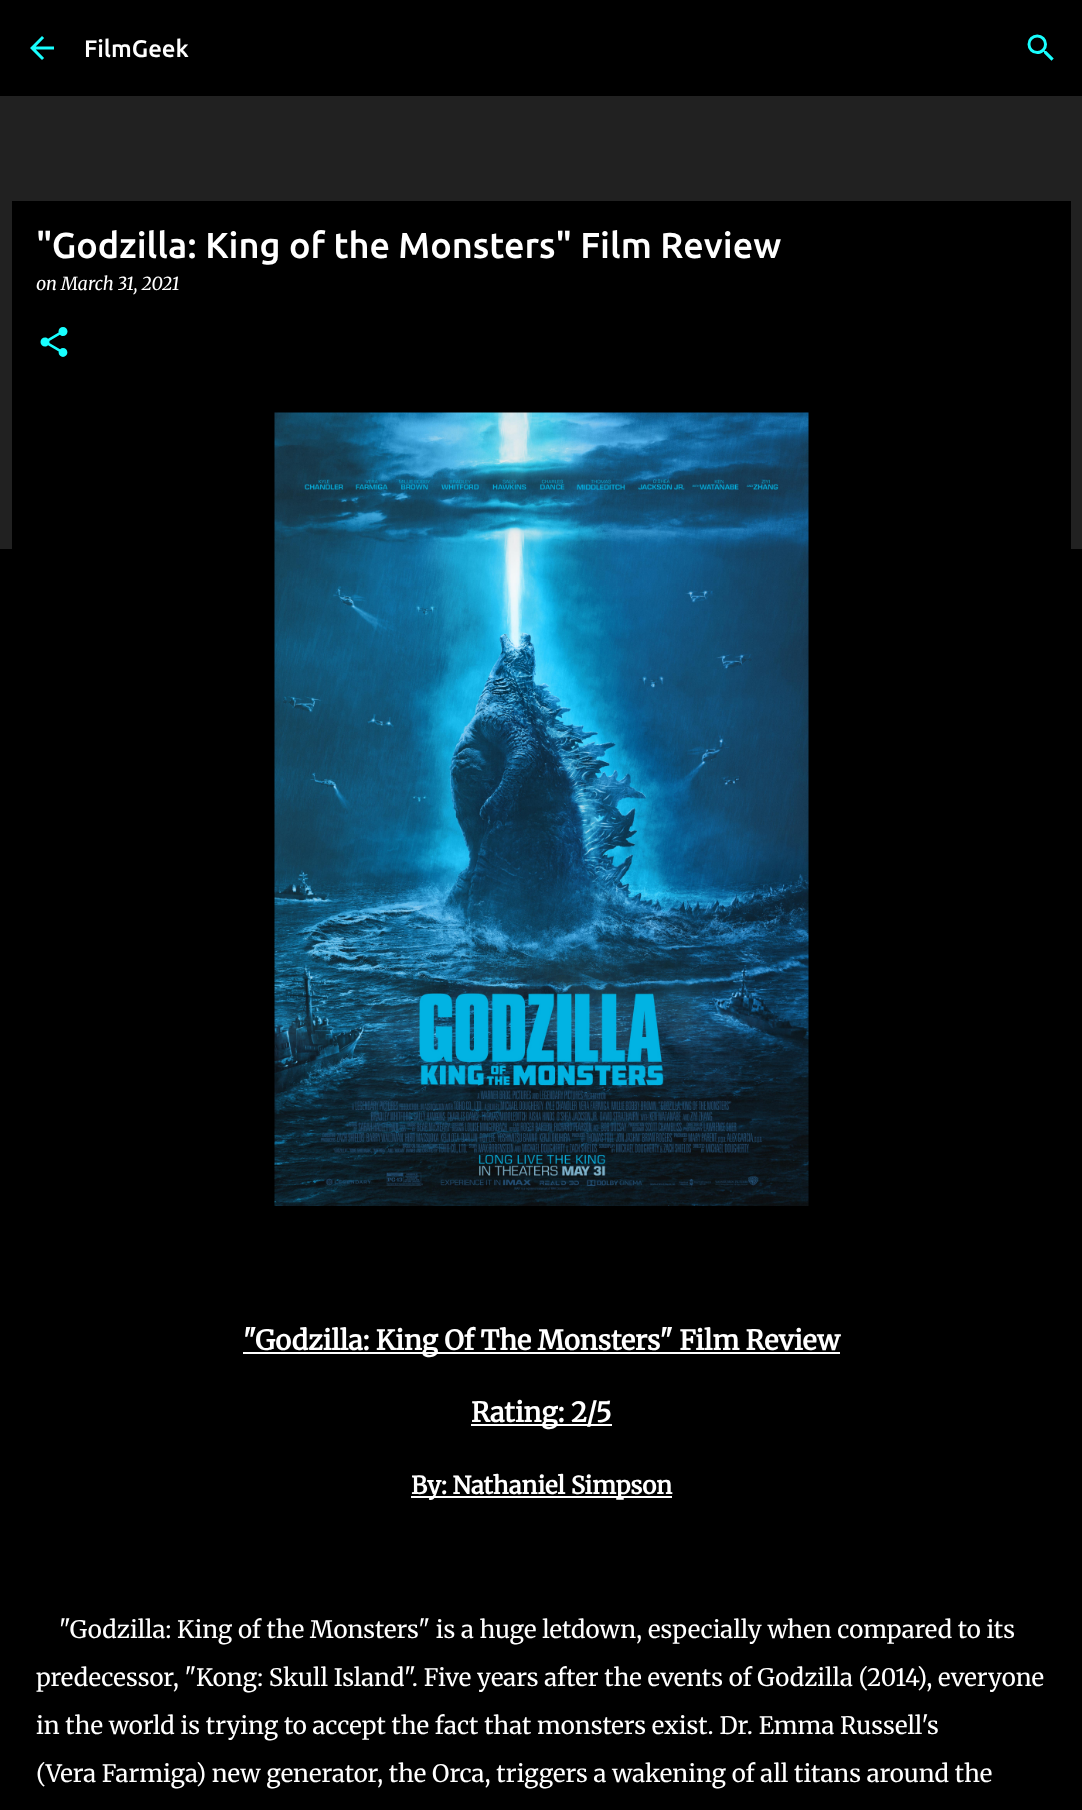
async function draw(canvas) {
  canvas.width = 1082;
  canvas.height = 1810;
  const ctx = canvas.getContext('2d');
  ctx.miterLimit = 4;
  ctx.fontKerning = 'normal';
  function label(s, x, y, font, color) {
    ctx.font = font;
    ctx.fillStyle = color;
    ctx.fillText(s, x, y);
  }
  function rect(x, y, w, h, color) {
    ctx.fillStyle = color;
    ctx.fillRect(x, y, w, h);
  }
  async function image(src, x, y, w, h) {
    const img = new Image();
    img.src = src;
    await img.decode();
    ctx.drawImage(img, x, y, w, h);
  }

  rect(0, 0, 1082, 1810, '#212121');
  rect(0, 0, 1082, 96, '#000');
  await image('assets/img1.png', 30, 36, 24, 24);
  label('FilmGeek', 84, 57, '500 24px Ubuntu', '#fff');
  await image('assets/img2.png', 1027, 34, 27, 27);
  rect(0, 549, 1082, 1261, '#000');
  rect(12, 201, 1059, 348, '#000');
  label('"Godzilla: King of the Monsters" Film Review', 36, 258, '500 36px Ubuntu', '#fff');
  label('on March 31, 2021', 36, 290, 'italic 18px Merriweather', '#fff');
  await image('assets/img3.png', 40, 327, 28, 30);
  await image('assets/img4.png', 274, 412, 535, 794);
  rect(243, 1352, 597, 2, '#fff');
  label('"Godzilla: King Of The Monsters" Film Review', 243, 1350, 'bold 27px Merriweather', '#fff');
  rect(471, 1424, 141, 2, '#fff');
  label('Rating: 2/5', 471, 1422, 'bold 27px Merriweather', '#fff');
  rect(411, 1496, 261, 2, '#fff');
  label('By: Nathaniel Simpson', 411, 1494, 'bold 24px Merriweather', '#fff');
  label('"Godzilla: King of the Monsters" is a huge letdown, especially when compared to its', 59, 1638, '300 24px Merriweather', '#fff');
  label('predecessor, "Kong: Skull Island". Five years after the events of Godzilla (2014), everyone', 36, 1686, '300 24px Merriweather', '#fff');
  label('in the world is trying to accept the fact that monsters exist. Dr. Emma Russell\'s', 36, 1734, '300 24px Merriweather', '#fff');
  label('(Vera Farmiga) new generator, the Orca, triggers a wakening of all titans around the', 36, 1782, '300 24px Merriweather', '#fff');
}

draw(document.querySelector('canvas'));
